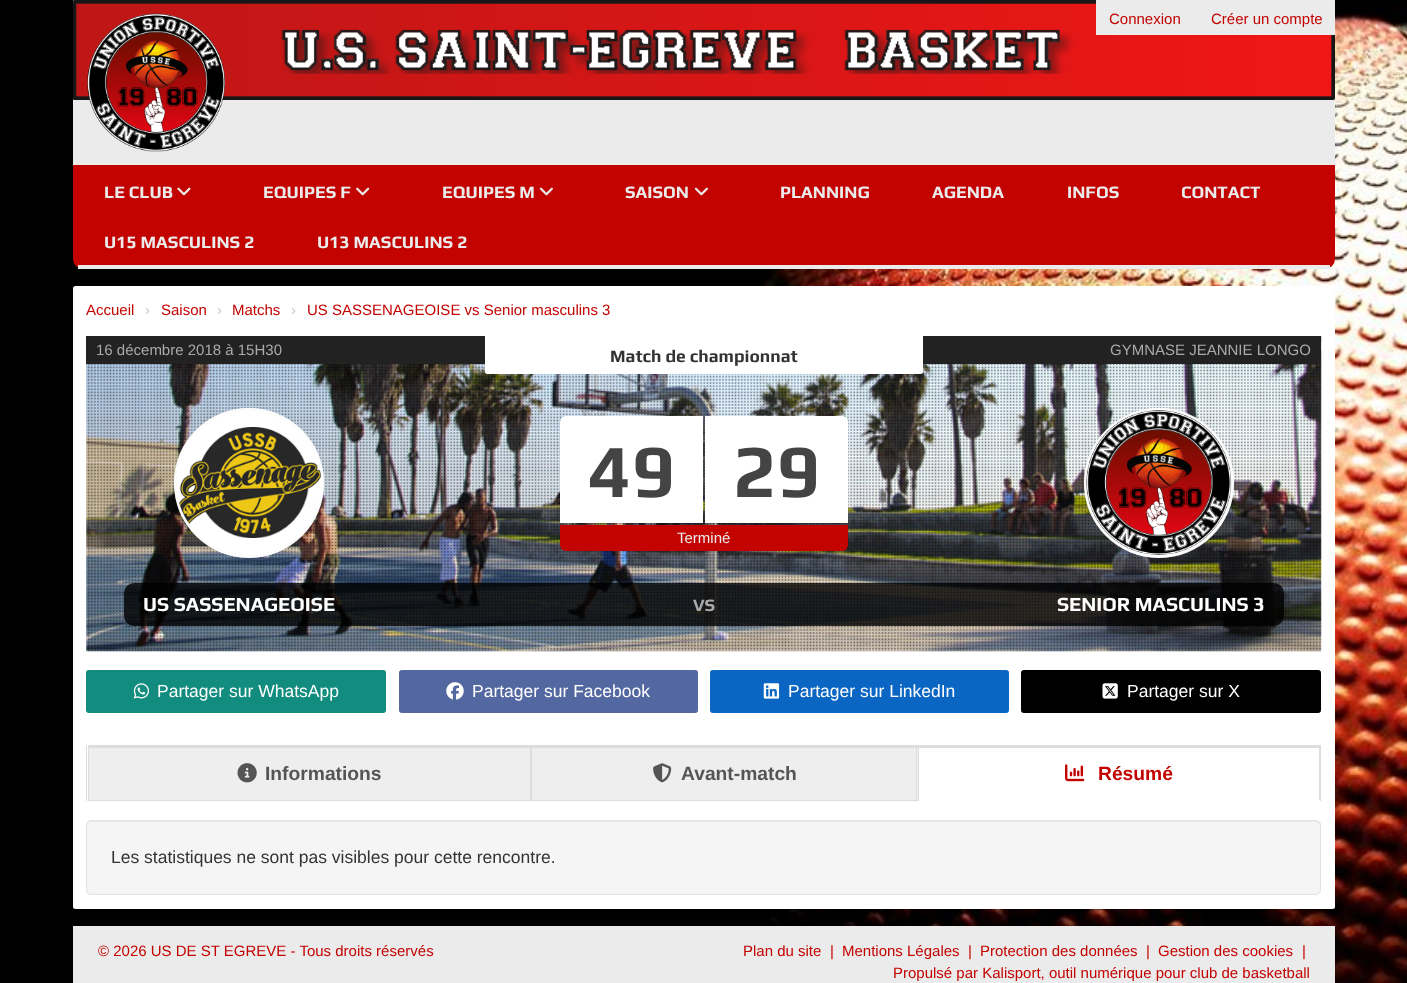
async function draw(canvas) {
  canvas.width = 1407;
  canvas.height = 983;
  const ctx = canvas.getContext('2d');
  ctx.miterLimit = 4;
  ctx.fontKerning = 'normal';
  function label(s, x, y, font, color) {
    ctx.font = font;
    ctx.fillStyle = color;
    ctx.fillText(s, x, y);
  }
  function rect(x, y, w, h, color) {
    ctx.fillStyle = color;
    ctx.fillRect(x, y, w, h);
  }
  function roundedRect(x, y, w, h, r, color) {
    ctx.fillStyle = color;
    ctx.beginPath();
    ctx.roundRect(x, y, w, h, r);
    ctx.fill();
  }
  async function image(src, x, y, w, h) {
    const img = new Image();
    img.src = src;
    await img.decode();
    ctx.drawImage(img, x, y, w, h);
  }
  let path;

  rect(0, 0, 1407, 983, '#000');
  await image('assets/img1.png', 615, 0, 792, 983);
  rect(73, 0, 1262, 165, '#ebebeb');
  await image('assets/img2.png', 73, 0, 1262, 100);
  await image('assets/img3.png', 87, 13, 138, 139);
  rect(1096, 0, 239, 35, '#ebebeb');
  label('Connexion', 1109, 24, '15px Liberation Sans', '#c20300');
  label('Créer un compte', 1211, 24, '15px Liberation Sans', '#c20300');
  ctx.beginPath();
  ctx.roundRect(73, 165, 1262, 104, [0, 0, 10, 10]);
  ctx.fill();
  rect(78, 265, 1252, 4, '#ebebeb');
  label('LE CLUB', 104, 198, 'bold 17.5px Play', '#ebebeb');
  await image('assets/img4.png', 177, 187, 14, 9);
  label('EQUIPES F', 263, 198, 'bold 17.5px Play', '#ebebeb');
  await image('assets/img5.png', 356, 187, 14, 9);
  label('EQUIPES M', 442, 198, 'bold 17.5px Play', '#ebebeb');
  await image('assets/img6.png', 539, 187, 14, 9);
  label('SAISON', 625, 198, 'bold 17.5px Play', '#ebebeb');
  await image('assets/img6.png', 694, 187, 14, 9);
  label('PLANNING', 780, 198, 'bold 17.5px Play', '#ebebeb');
  label('AGENDA', 932, 198, 'bold 17.5px Play', '#ebebeb');
  label('INFOS', 1067, 198, 'bold 17.5px Play', '#ebebeb');
  label('CONTACT', 1181, 198, 'bold 17.5px Play', '#ebebeb');
  label('U15 MASCULINS 2', 104, 248, 'bold 17.5px Play', '#ebebeb');
  label('U13 MASCULINS 2', 317, 248, 'bold 17.5px Play', '#ebebeb');
  ctx.fillStyle = '#00000026';
  ctx.filter = 'blur(0.5px)';
  ctx.beginPath();
  ctx.roundRect(73, 288, 1262, 622, 2.5);
  ctx.fill();
  ctx.filter = 'none';
  roundedRect(73, 286, 1262, 623, 2.5, '#fff');
  label('Accueil', 86, 315, '15px Liberation Sans', '#c20300');
  label('›', 145, 315, '15px Liberation Sans', '#ccc');
  label('Saison', 161, 315, '15px Liberation Sans', '#c20300');
  label('›', 217, 315, '15px Liberation Sans', '#ccc');
  label('Matchs', 232, 315, '15px Liberation Sans', '#c20300');
  label('›', 291, 315, '15px Liberation Sans', '#ccc');
  label('US SASSENAGEOISE vs Senior masculins 3', 307, 315, '15px Liberation Sans', '#c20300');
  await image('assets/img7.png', 86, 336, 1236, 316);
  await image('assets/img8.png', 86, 364, 1235, 288);
  rect(86, 336, 1235, 28, '#222');
  label('16 décembre 2018 à 15H30', 96, 355, '15px Liberation Sans', '#aaa');
  ctx.fillStyle = '#fff';
  ctx.beginPath();
  ctx.roundRect(485, 336, 438, 38, [0, 0, 2.5, 2.5]);
  ctx.fill();
  label('Match de championnat', 610, 362, 'bold 17.5px Play', '#333');
  label('GYMNASE JEANNIE LONGO', 1110, 355, '15px Liberation Sans', '#aaa');
  ctx.fillStyle = '#fff';
  ctx.beginPath();
  ctx.arc(249, 483, 75, 0, 2 * Math.PI);
  ctx.fill();
  ctx.beginPath();
  ctx.arc(249, 483, 73.5, 0, 2 * Math.PI);
  ctx.strokeStyle = '#fafafa80';
  ctx.lineWidth = 3;
  ctx.stroke();
  await image('assets/img9.png', 179, 427, 142, 111);
  ctx.beginPath();
  ctx.roundRect(560, 416, 143, 107, [6, 0, 0, 0]);
  ctx.fill();
  label('49', 588, 497, 'bold 75px Play', '#444');
  ctx.fillStyle = '#fff';
  ctx.beginPath();
  ctx.roundRect(705, 416, 143, 107, [0, 6, 0, 0]);
  ctx.fill();
  label('29', 733, 497, 'bold 75px Play', '#444');
  ctx.fillStyle = '#c20300';
  ctx.beginPath();
  ctx.roundRect(560, 525, 288, 26, [0, 0, 6, 6]);
  ctx.fill();
  label('Terminé', 677, 543, '15px Liberation Sans', '#ebebeb');
  ctx.fillStyle = '#fff';
  ctx.beginPath();
  ctx.arc(1159, 483, 75, 0, 2 * Math.PI);
  ctx.fill();
  ctx.beginPath();
  ctx.arc(1159, 483, 73.5, 0, 2 * Math.PI);
  ctx.stroke();
  await image('assets/img10.png', 1086, 410, 146, 145);
  roundedRect(124, 583, 1160, 43, 10, '#000000cc');
  label('US SASSENAGEOISE', 143, 611, 'bold 20px Play', '#fff');
  label('VS', 693, 611, 'bold 17.5px Play', '#aaa');
  label('SENIOR MASCULINS 3', 1057, 611, 'bold 20px Play', '#fff');
  ctx.fillStyle = '#128c7e';
  ctx.beginPath();
  ctx.roundRect(86.5, 670.5, 299, 42, 2);
  ctx.fill();
  ctx.strokeStyle = '#128c7e';
  ctx.lineWidth = 1;
  ctx.stroke();
  await image('assets/img11.png', 133, 683, 17, 16);
  label('Partager sur WhatsApp', 157, 697, '17.5px Liberation Sans', '#fff');
  ctx.fillStyle = '#5367a0';
  ctx.beginPath();
  ctx.roundRect(399.5, 670.5, 298, 42, 2);
  ctx.fill();
  ctx.strokeStyle = '#5367a0';
  ctx.stroke();
  await image('assets/img12.png', 446, 682, 18, 18);
  label('Partager sur Facebook', 472, 697, '17.5px Liberation Sans', '#fff');
  ctx.fillStyle = '#0a66c2';
  ctx.beginPath();
  ctx.roundRect(710.5, 670.5, 298, 42, 2);
  ctx.fill();
  ctx.strokeStyle = '#0a66c2';
  ctx.stroke();
  await image('assets/img13.png', 763, 683, 17, 16);
  label('Partager sur LinkedIn', 788, 697, '17.5px Liberation Sans', '#fff');
  ctx.fillStyle = '#000';
  ctx.beginPath();
  ctx.roundRect(1021.5, 670.5, 299, 42, 2);
  ctx.fill();
  ctx.strokeStyle = '#000';
  ctx.stroke();
  await image('assets/img14.png', 1102, 683, 16, 16);
  label('Partager sur X', 1127, 697, '17.5px Liberation Sans', '#fff');
  rect(1320, 745, 1, 56, '#ddd');
  rect(86, 745, 1, 56, '#ddd');
  rect(89, 748, 441, 52, '#eee');
  rect(88, 745, 1232, 3, '#ddd');
  rect(530, 745, 1, 56, '#ddd');
  rect(88, 800, 443, 1, '#ddd');
  rect(88, 745, 1, 56, '#ddd');
  await image('assets/img15.png', 237, 763, 20, 20);
  label('Informations', 265, 780, 'bold 19.25px Liberation Sans', '#555');
  rect(532, 748, 386, 52, '#eee');
  rect(916, 745, 1, 56, '#ddd');
  rect(531, 800, 387, 1, '#ddd');
  rect(531, 745, 1, 56, '#ddd');
  await image('assets/img16.png', 653, 763, 19, 20);
  label('Avant-match', 681, 780, 'bold 19.25px Liberation Sans', '#555');
  rect(1319, 745, 1, 56, '#ddd');
  rect(1319, 800, 1, 1, '#fff');
  rect(918, 745, 1, 56, '#ddd');
  await image('assets/img17.png', 1065, 764, 20, 18);
  label('Résumé', 1098, 780, 'bold 19.25px Liberation Sans', '#c20300');
  roundedRect(86, 820, 1235, 75, 5, '#f5f5f5');
  ctx.fillStyle = '#e9e9e9';
  path = new Path2D('M91 822H1316C1318 822 1320 824 1320 826C1320 823 1319 821 1316 821H92C89 821 88 823 88 826C88 824 89 822 91 822Z');
  ctx.fill(path);
  ctx.beginPath();
  ctx.roundRect(86.5, 820.5, 1234, 74, 4.5);
  ctx.strokeStyle = '#e3e3e3';
  ctx.stroke();
  label('Les statistiques ne sont pas visibles pour cette rencontre.', 111, 863, '17.5px Liberation Sans', '#333');
  rect(73, 926, 1262, 57, '#ebebeb');
  label('© 2026 US DE ST EGREVE - Tous droits réservés', 98, 956, '15px Liberation Sans', '#c20300');
  label('Plan du site', 743, 956, '15px Liberation Sans', '#c20300');
  label('|', 830, 956, '15px Liberation Sans', '#c20300');
  label('Mentions Légales', 842, 956, '15px Liberation Sans', '#c20300');
  label('|', 968, 956, '15px Liberation Sans', '#c20300');
  label('Protection des données', 980, 956, '15px Liberation Sans', '#c20300');
  label('|', 1146, 956, '15px Liberation Sans', '#c20300');
  label('Gestion des cookies', 1158, 956, '15px Liberation Sans', '#c20300');
  label('|', 1302, 956, '15px Liberation Sans', '#c20300');
  label('Propulsé par Kalisport, outil numérique pour club de basketball', 893, 978, '15px Liberation Sans', '#c20300');
}

draw(document.querySelector('canvas'));
